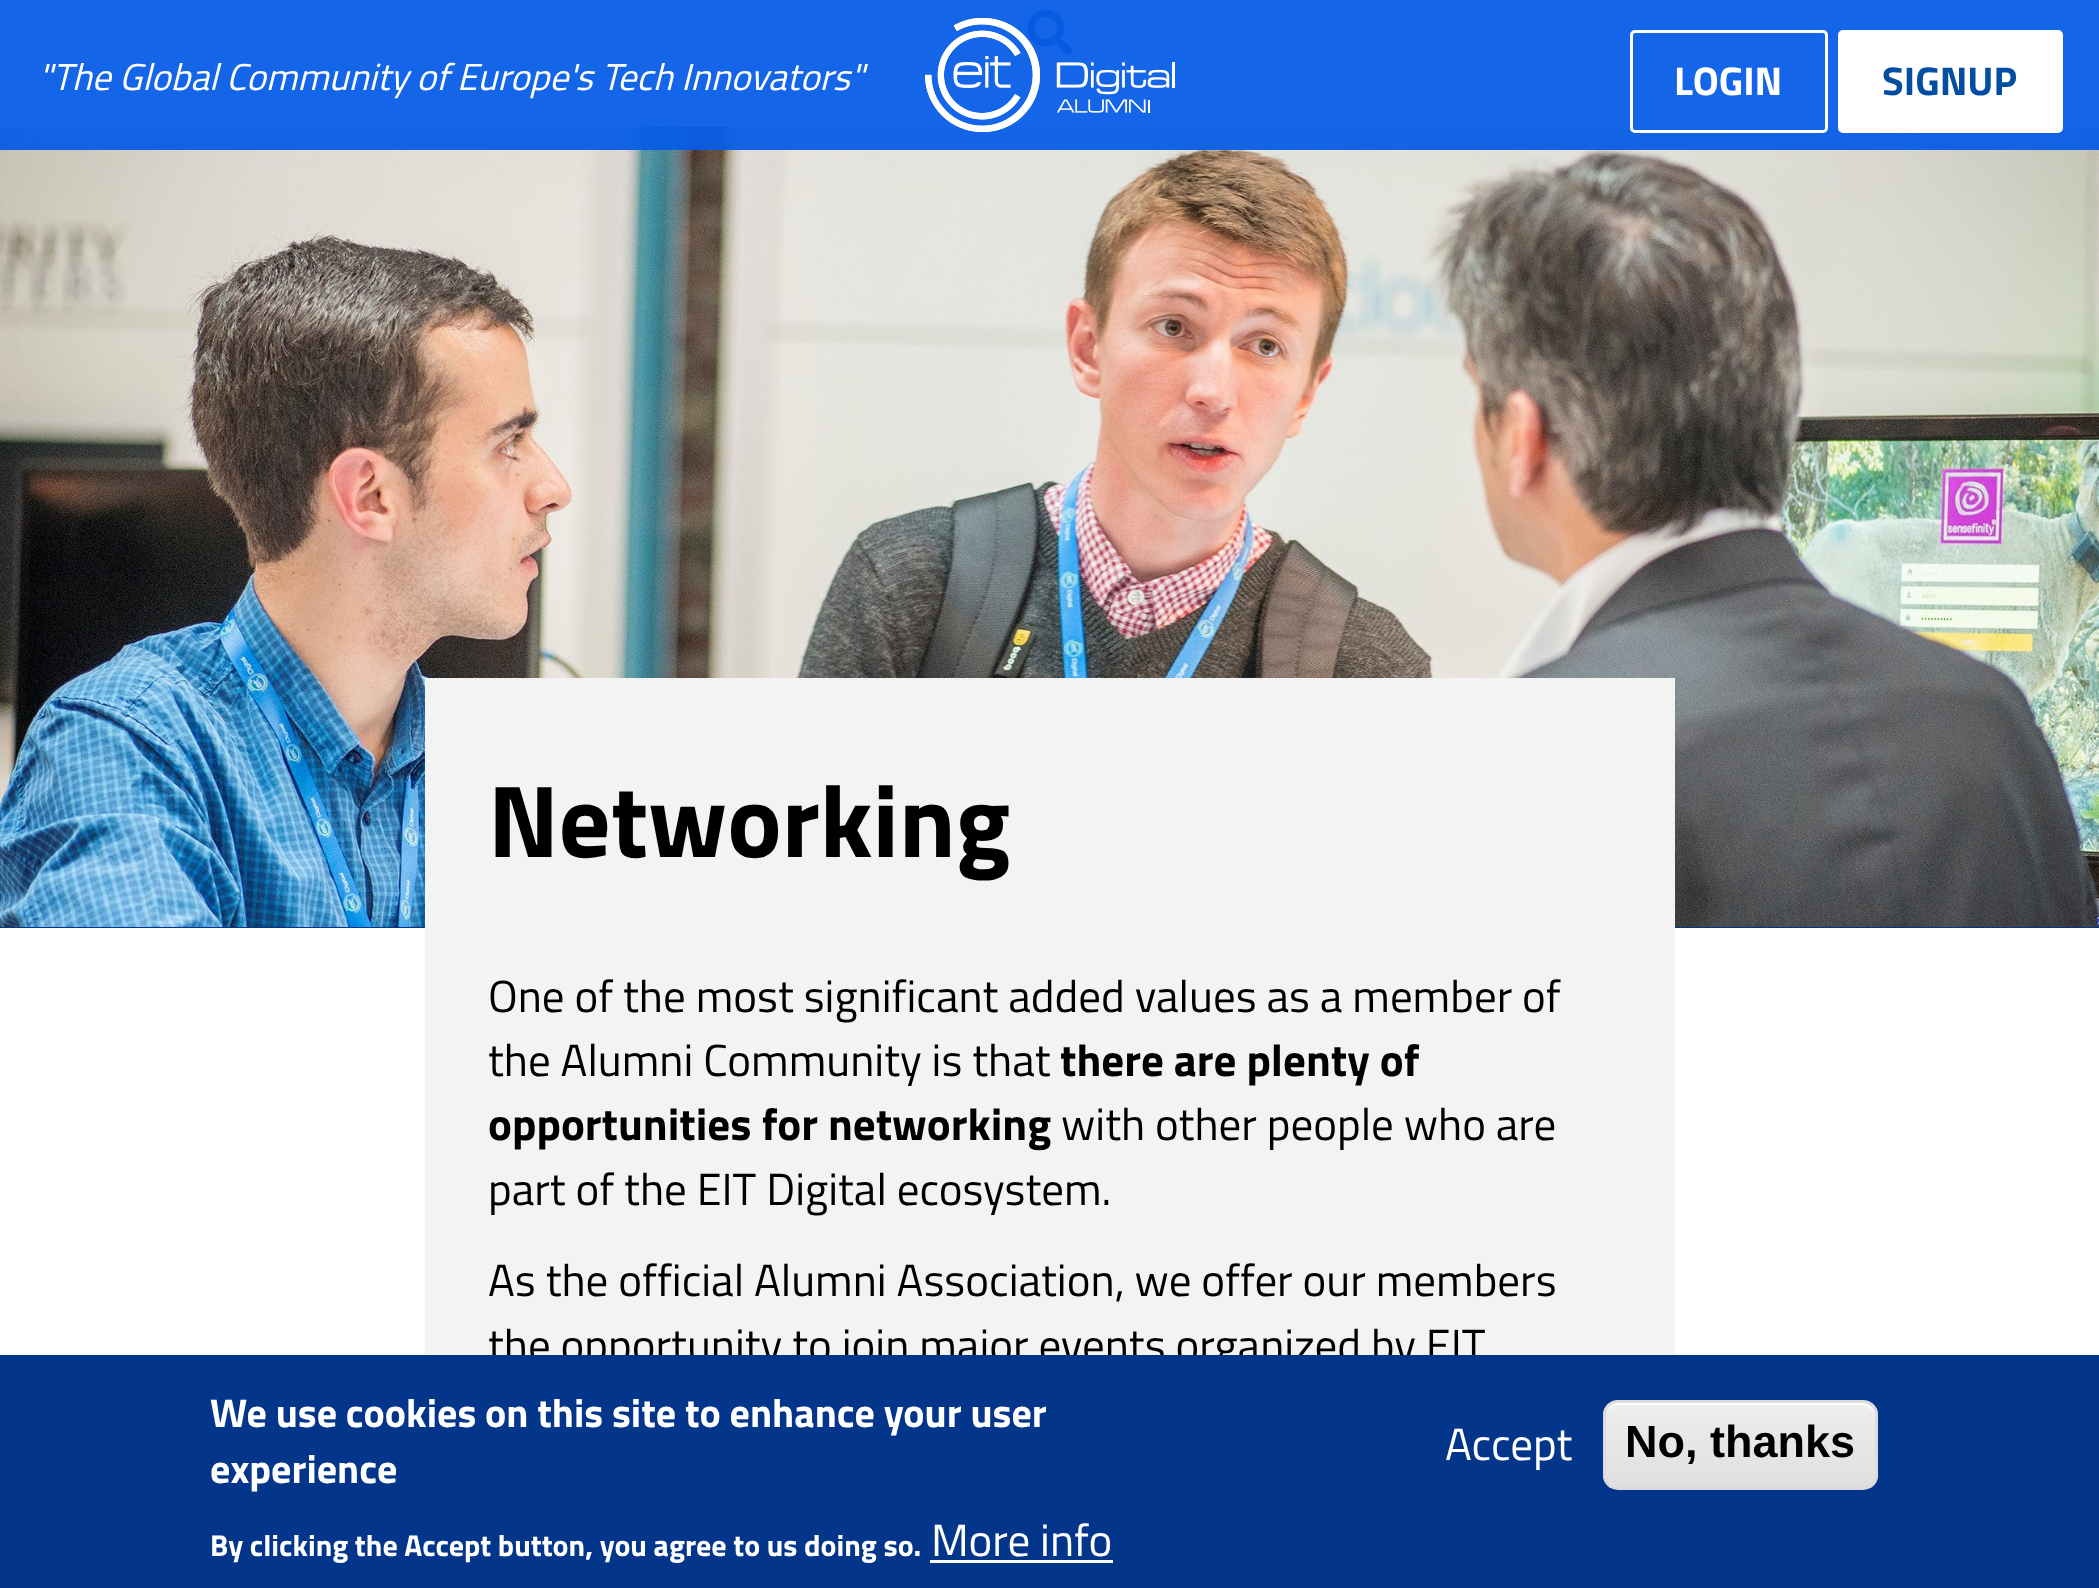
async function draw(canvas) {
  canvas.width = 2099;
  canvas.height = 1588;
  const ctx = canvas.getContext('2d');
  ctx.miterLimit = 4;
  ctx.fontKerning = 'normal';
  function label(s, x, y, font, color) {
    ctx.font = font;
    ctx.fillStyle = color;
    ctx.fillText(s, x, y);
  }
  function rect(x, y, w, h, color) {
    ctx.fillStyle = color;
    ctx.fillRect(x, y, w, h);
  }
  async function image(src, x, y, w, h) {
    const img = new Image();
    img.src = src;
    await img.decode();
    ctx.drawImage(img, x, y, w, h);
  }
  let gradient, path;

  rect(0, 0, 2099, 1588, '#fff');
  rect(0, 0, 2099, 127, '#f3f3f3');
  await image('assets/img1.png', 1027, 10, 46, 45);
  await image('assets/img3.png', 0, 127, 2099, 800);
  rect(0, 0, 2099, 150, '#075de6f2');
  label('"The Global Community of Europe\'s Tech Innovators"', 38, 90, 'italic 37.5px Titillium Web', '#fff');
  await image('assets/img2.png', 925, 18, 250, 114);
  ctx.beginPath();
  ctx.roundRect(1631.5, 31.5, 195, 100, 3.5);
  ctx.strokeStyle = '#fff';
  ctx.lineWidth = 3;
  ctx.stroke();
  label('LOGIN', 1674, 95, 'bold 40px Titillium Web', '#fff');
  ctx.beginPath();
  ctx.roundRect(1839.5, 31.5, 222, 100, 3.5);
  ctx.fill();
  ctx.stroke();
  label('SIGNUP', 1882, 95, 'bold 40px Titillium Web', '#034ea2');
  rect(0, 927, 2099, 1, '#03358a');
  rect(425, 678, 1250, 677, '#f3f3f3');
  label('Networking', 488, 857, 'bold 102.5px Titillium Web', '#000');
  label('One of the most significant added values as a member of', 488, 1012, '45px Titillium Web', '#000');
  label('the Alumni Community is that', 488, 1076, '45px Titillium Web', '#000');
  label('there are plenty of', 1060, 1076, 'bold 45px Titillium Web', '#000');
  label('opportunities for networking', 488, 1140, 'bold 45px Titillium Web', '#000');
  label('with other people who are', 1061, 1140, '45px Titillium Web', '#000');
  label('part of the EIT Digital ecosystem.', 488, 1205, '45px Titillium Web', '#000');
  label('As the official Alumni Association, we offer our members', 488, 1296, '45px Titillium Web', '#000');
  label('the opportunity to join major events organized by EIT', 488, 1361, '45px Titillium Web', '#000');
  rect(0, 1355, 2099, 233, '#03358a');
  label('We use cookies on this site to enhance your user', 210, 1427, 'bold 40px Titillium Web', '#fff');
  label('experience', 210, 1483, 'bold 40px Titillium Web', '#fff');
  label('By clicking the Accept button, you agree to us doing so.', 210, 1556, 'bold 30px Titillium Web', '#fff');
  label('More info', 931, 1556, '45px Titillium Web', '#fff');
  rect(930, 1560, 183, 3, '#fff');
  label('Accept', 1445, 1460, '45px Titillium Web', '#fff');
  ctx.save();
  ctx.beginPath();
  ctx.roundRect(1603, 1400, 275, 90, 15);
  ctx.clip();
  gradient = ctx.createLinearGradient(1740, 1403, 1740, 1488);
  gradient.addColorStop(0.05, '#ededed');
  gradient.addColorStop(1, '#dfdfdf');
  ctx.fillStyle = gradient;
  ctx.fillRect(1603, 1403, 275, 85);
  ctx.restore();
  path = new Path2D('M1618 1405H1862C1869 1405 1875 1411 1875 1418V1416C1875 1409 1869 1403 1862 1403H1618C1611 1403 1605 1409 1605 1416V1418C1605 1411 1611 1405 1618 1405Z');
  ctx.fill(path);
  ctx.beginPath();
  ctx.roundRect(1604.5, 1401.5, 272, 87, 13.5);
  ctx.strokeStyle = '#dcdcdc';
  ctx.stroke();
  label('No, thanks', 1625, 1457, 'bold 45px Liberation Sans', '#000');
}

draw(document.querySelector('canvas'));
